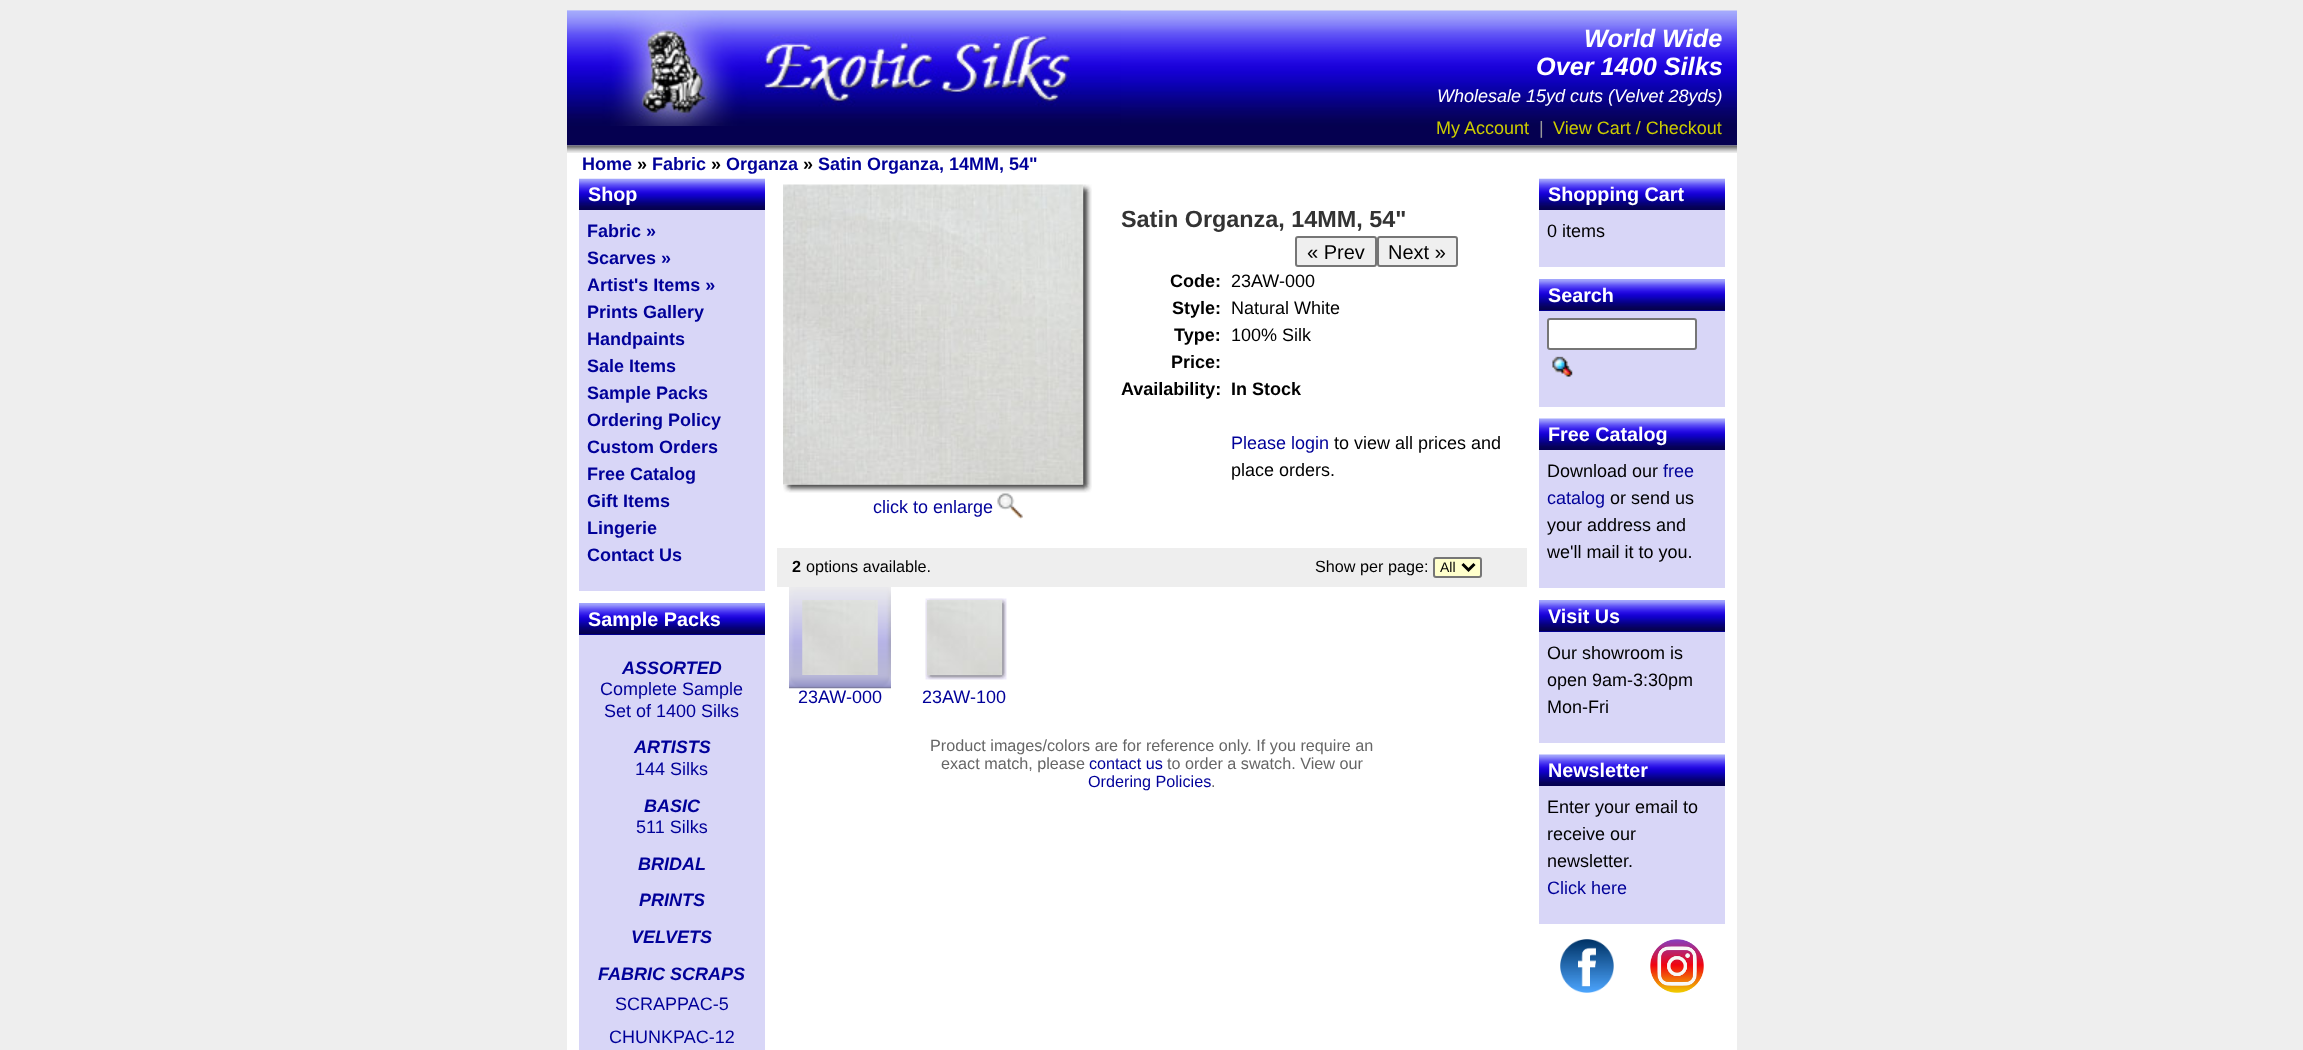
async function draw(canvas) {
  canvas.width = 2303;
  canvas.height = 1050;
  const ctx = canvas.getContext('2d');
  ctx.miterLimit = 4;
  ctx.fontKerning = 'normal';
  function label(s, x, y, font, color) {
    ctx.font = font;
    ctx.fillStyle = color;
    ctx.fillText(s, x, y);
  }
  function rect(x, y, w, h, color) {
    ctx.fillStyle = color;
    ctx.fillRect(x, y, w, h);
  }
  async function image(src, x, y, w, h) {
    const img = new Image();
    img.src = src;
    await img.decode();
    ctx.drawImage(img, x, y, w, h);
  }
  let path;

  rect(0, 0, 2303, 1050, '#eee');
  rect(567, 145, 1170, 905, '#fff');
  await image('assets/img1.png', 567, 10, 1170, 136);
  await image('assets/img2.png', 567, 10, 554, 116);
  label('World Wide', 1584, 47, 'italic bold 25.25px Liberation Sans', '#fff');
  label('Over 1400 Silks', 1536, 75, 'italic bold 25.25px Liberation Sans', '#fff');
  label('Wholesale 15yd cuts (Velvet 28yds)', 1437, 102, 'italic 18px Liberation Sans', '#fff');
  label('My Account', 1436, 134, '18px Liberation Sans', '#cc0');
  label('|', 1539, 134, '18px Liberation Sans', '#999');
  label('View Cart / Checkout', 1553, 134, '18px Liberation Sans', '#cc0');
  await image('assets/img3.png', 567, 145, 1170, 8);
  label('Home', 582, 170, 'bold 18px Liberation Sans', '#009');
  label('»', 637, 170, 'bold 18px Liberation Sans', '#000');
  label('Fabric', 652, 170, 'bold 18px Liberation Sans', '#009');
  label('»', 711, 170, 'bold 18px Liberation Sans', '#000');
  label('Organza', 726, 170, 'bold 18px Liberation Sans', '#009');
  label('»', 803, 170, 'bold 18px Liberation Sans', '#000');
  label('Satin Organza, 14MM, 54"', 818, 170, 'bold 18px Liberation Sans', '#009');
  await image('assets/img4.png', 579, 178, 186, 32);
  label('Shop', 588, 201, 'bold 19.75px Liberation Sans', '#fff');
  rect(579, 210, 186, 381, '#d8d6f7');
  label('Fabric »', 587, 237, 'bold 18px Liberation Sans', '#009');
  label('Scarves »', 587, 264, 'bold 18px Liberation Sans', '#009');
  label('Artist\'s Items »', 587, 291, 'bold 18px Liberation Sans', '#009');
  label('Prints Gallery', 587, 318, 'bold 18px Liberation Sans', '#009');
  label('Handpaints', 587, 345, 'bold 18px Liberation Sans', '#009');
  label('Sale Items', 587, 372, 'bold 18px Liberation Sans', '#009');
  label('Sample Packs', 587, 399, 'bold 18px Liberation Sans', '#009');
  label('Ordering Policy', 587, 426, 'bold 18px Liberation Sans', '#009');
  label('Custom Orders', 587, 453, 'bold 18px Liberation Sans', '#009');
  label('Free Catalog', 587, 480, 'bold 18px Liberation Sans', '#009');
  label('Gift Items', 587, 507, 'bold 18px Liberation Sans', '#009');
  label('Lingerie', 587, 534, 'bold 18px Liberation Sans', '#009');
  label('Contact Us', 587, 561, 'bold 18px Liberation Sans', '#009');
  rect(579, 634, 186, 1, '#00c');
  await image('assets/img5.png', 579, 603, 186, 32);
  label('Sample Packs', 588, 626, 'bold 19.75px Liberation Sans', '#fff');
  rect(579, 635, 186, 415, '#d8d6f7');
  label('ASSORTED', 622, 674, 'italic bold 18px Liberation Sans', '#009');
  label('Complete Sample', 600, 695, '18px Liberation Sans', '#009');
  label('Set of 1400 Silks', 604, 717, '18px Liberation Sans', '#009');
  label('ARTISTS', 634, 753, 'italic bold 18px Liberation Sans', '#009');
  label('144 Silks', 635, 775, '18px Liberation Sans', '#009');
  label('BASIC', 644, 812, 'italic bold 18px Liberation Sans', '#009');
  label('511 Silks', 636, 833, '18px Liberation Sans', '#009');
  label('BRIDAL', 638, 870, 'italic bold 18px Liberation Sans', '#009');
  label('PRINTS', 639, 906, 'italic bold 18px Liberation Sans', '#009');
  label('VELVETS', 631, 943, 'italic bold 18px Liberation Sans', '#009');
  label('FABRIC SCRAPS', 598, 980, 'italic bold 18px Liberation Sans', '#009');
  label('SCRAPPAC-5', 615, 1010, '18px Liberation Sans', '#009');
  label('CHUNKPAC-12', 609, 1043, '18px Liberation Sans', '#009');
  label('Satin Organza, 14MM, 54"', 1121, 227, 'bold 23.4px Liberation Sans', '#333');
  ctx.fillStyle = '#efefef';
  ctx.beginPath();
  ctx.roundRect(1296, 237, 80, 29, 2);
  ctx.fill();
  ctx.strokeStyle = '#767676';
  ctx.lineWidth = 2;
  ctx.stroke();
  label('« Prev', 1307, 259, '20px Liberation Sans', '#000');
  ctx.fillStyle = '#efefef';
  ctx.beginPath();
  ctx.roundRect(1378, 237, 79, 29, 2);
  ctx.fill();
  ctx.stroke();
  label('Next »', 1388, 259, '20px Liberation Sans', '#000');
  label('Code:', 1170, 287, 'bold 18px Liberation Sans', '#000');
  label('23AW-000', 1231, 287, '18px Liberation Sans', '#000');
  label('Style:', 1172, 314, 'bold 18px Liberation Sans', '#000');
  label('Natural White', 1231, 314, '18px Liberation Sans', '#000');
  label('Type:', 1174, 341, 'bold 18px Liberation Sans', '#000');
  label('100% Silk', 1231, 341, '18px Liberation Sans', '#000');
  label('Price:', 1171, 368, 'bold 18px Liberation Sans', '#000');
  label('Availability:', 1121, 395, 'bold 18px Liberation Sans', '#000');
  label('In Stock', 1231, 395, 'bold 18px Liberation Sans', '#000');
  label('Please login', 1231, 449, '18px Liberation Sans', '#009');
  label('to view all prices and', 1334, 449, '18px Liberation Sans', '#000');
  label('place orders.', 1231, 476, '18px Liberation Sans', '#000');
  await image('assets/img6.png', 783, 184, 309, 309);
  await image('assets/img7.png', 783, 184, 300, 301);
  label('click to enlarge', 873, 513, '18px Liberation Sans', '#009');
  await image('assets/img8.png', 997, 493, 26, 26);
  rect(777, 548, 750, 39, '#eee');
  label('2', 792, 572, 'bold 16.2px Liberation Sans', '#000');
  label('options available.', 806, 572, '16.2px Liberation Sans', '#000');
  label('Show per page:', 1315, 572, '16.2px Liberation Sans', '#000');
  ctx.fillStyle = '#ffc';
  ctx.beginPath();
  ctx.roundRect(1434, 558, 47, 19, 2);
  ctx.fill();
  ctx.stroke();
  path = new Path2D('M1462.5 564L1468.5 570L1474.5 564');
  ctx.strokeStyle = '#000';
  ctx.lineWidth = 3;
  ctx.stroke(path);
  label('All', 1440, 572, '14px Liberation Sans', '#000');
  await image('assets/img9.png', 789, 587, 102, 102);
  await image('assets/img10.png', 802, 600, 76, 75);
  label('23AW-000', 798, 703, '18px Liberation Sans', '#009');
  await image('assets/img11.png', 925, 598, 82, 82);
  label('23AW-100', 922, 703, '18px Liberation Sans', '#009');
  label('Product images/colors are for reference only. If you require an', 930, 751, '16.2px Liberation Sans', '#666');
  label('exact match, please', 941, 769, '16.2px Liberation Sans', '#666');
  label('contact us', 1089, 769, '16.2px Liberation Sans', '#009');
  label('to order a swatch. View our', 1167, 769, '16.2px Liberation Sans', '#666');
  label('Ordering Policies', 1088, 787, '16.2px Liberation Sans', '#009');
  label('.', 1211, 787, '16.2px Liberation Sans', '#666');
  await image('assets/img12.png', 1539, 178, 186, 32);
  label('Shopping Cart', 1548, 201, 'bold 19.75px Liberation Sans', '#fff');
  rect(1539, 210, 186, 57, '#d8d6f7');
  label('0 items', 1547, 237, '18px Liberation Sans', '#000');
  rect(1539, 310, 186, 1, '#00c');
  await image('assets/img13.png', 1539, 279, 186, 32);
  label('Search', 1548, 302, 'bold 19.75px Liberation Sans', '#fff');
  rect(1539, 311, 186, 96, '#d8d6f7');
  ctx.fillStyle = '#fff';
  ctx.beginPath();
  ctx.roundRect(1548, 319, 148, 30, 2);
  ctx.fill();
  ctx.strokeStyle = '#767676';
  ctx.lineWidth = 2;
  ctx.stroke();
  await image('assets/img14.png', 1552, 356, 21, 21);
  await image('assets/img15.png', 1539, 418, 186, 32);
  label('Free Catalog', 1548, 441, 'bold 19.75px Liberation Sans', '#fff');
  rect(1539, 450, 186, 138, '#d8d6f7');
  label('Download our', 1547, 477, '18px Liberation Sans', '#000');
  label('free', 1663, 477, '18px Liberation Sans', '#009');
  label('catalog', 1547, 504, '18px Liberation Sans', '#009');
  label('or send us', 1610, 504, '18px Liberation Sans', '#000');
  label('your address and', 1547, 531, '18px Liberation Sans', '#000');
  label('we\'ll mail it to you.', 1547, 558, '18px Liberation Sans', '#000');
  rect(1539, 631, 186, 1, '#00c');
  await image('assets/img13.png', 1539, 600, 186, 32);
  label('Visit Us', 1548, 623, 'bold 19.75px Liberation Sans', '#fff');
  rect(1539, 632, 186, 111, '#d8d6f7');
  label('Our showroom is', 1547, 659, '18px Liberation Sans', '#000');
  label('open 9am-3:30pm', 1547, 686, '18px Liberation Sans', '#000');
  label('Mon-Fri', 1547, 713, '18px Liberation Sans', '#000');
  await image('assets/img16.png', 1539, 754, 186, 32);
  label('Newsletter', 1548, 777, 'bold 19.75px Liberation Sans', '#fff');
  rect(1539, 786, 186, 138, '#d8d6f7');
  label('Enter your email to', 1547, 813, '18px Liberation Sans', '#000');
  label('receive our', 1547, 840, '18px Liberation Sans', '#000');
  label('newsletter.', 1547, 867, '18px Liberation Sans', '#000');
  label('Click here', 1547, 894, '18px Liberation Sans', '#009');
  await image('assets/img17.png', 1560, 939, 54, 54);
  await image('assets/img18.png', 1650, 939, 54, 54);
}

draw(document.querySelector('canvas'));
